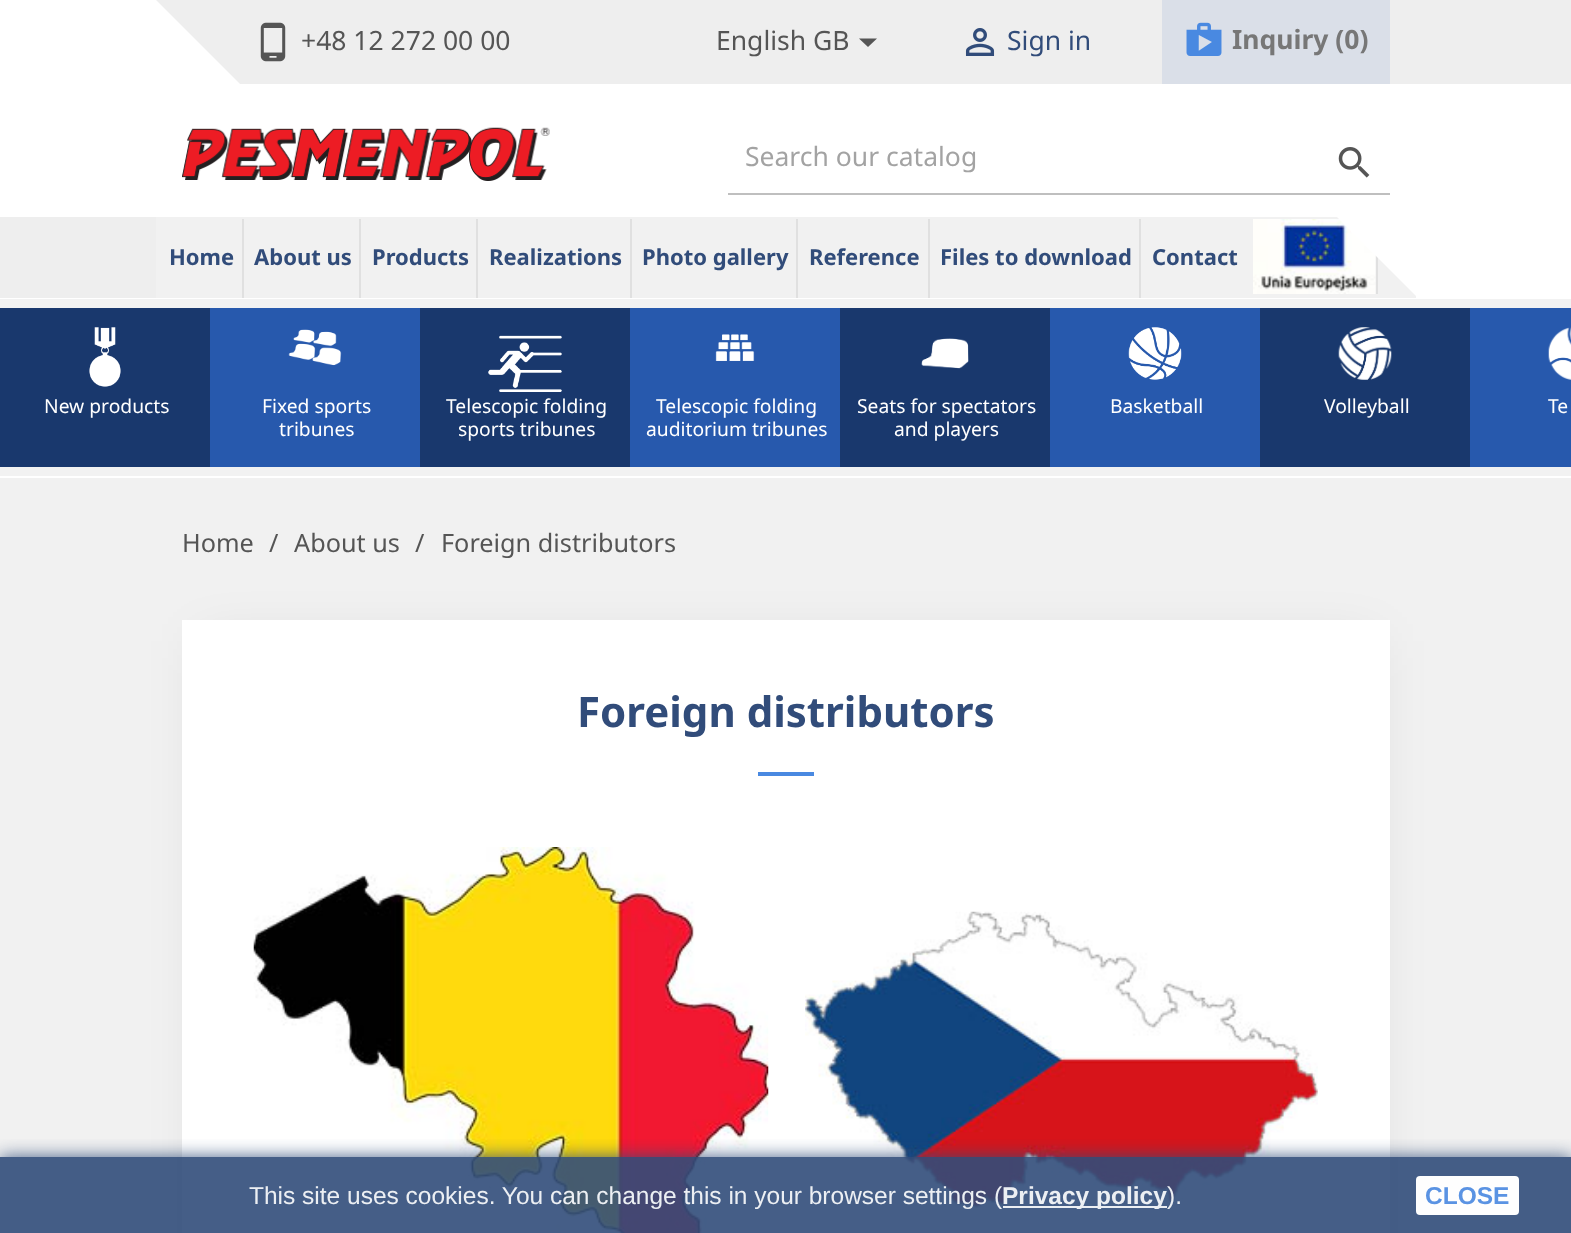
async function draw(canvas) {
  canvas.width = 1571;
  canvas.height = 1233;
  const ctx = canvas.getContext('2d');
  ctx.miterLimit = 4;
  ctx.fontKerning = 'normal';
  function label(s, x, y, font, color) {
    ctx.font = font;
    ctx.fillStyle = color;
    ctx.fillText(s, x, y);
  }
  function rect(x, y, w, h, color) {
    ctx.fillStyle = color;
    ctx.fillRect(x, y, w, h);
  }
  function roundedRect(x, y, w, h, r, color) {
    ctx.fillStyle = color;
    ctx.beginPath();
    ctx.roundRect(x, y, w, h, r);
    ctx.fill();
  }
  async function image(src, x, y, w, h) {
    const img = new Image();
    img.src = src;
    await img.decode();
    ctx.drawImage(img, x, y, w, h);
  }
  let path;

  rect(0, 0, 1571, 1233, '#fff');
  rect(156, 0, 1415, 84, '#eee');
  ctx.fillStyle = '#fff';
  path = new Path2D('M240 84H156V0Z');
  ctx.fill(path);
  await image('assets/img1.png', 260, 22, 26, 40);
  label('+48 12 272 00 00', 301, 50, '26.5px Noto Sans', '#555');
  label('English GB', 716, 50, '26.5px Noto Sans', '#555');
  path = new Path2D('M859 38.5H877L868 47Z');
  ctx.fill(path);
  await image('assets/img2.png', 965, 28, 30, 28);
  label('Sign in', 1007, 50, '26.5px Noto Sans', '#314c7a');
  rect(1162, 0, 228, 84, '#dadfe8');
  await image('assets/img3.png', 1186, 22, 36, 34);
  label('Inquiry (0)', 1232, 49, 'bold 26.5px Noto Sans', '#777');
  await image('assets/img4.png', 182, 127, 368, 54);
  rect(728, 193, 662, 2, '#bfbfbf');
  label('Search our catalog', 745, 166, '26.5px Noto Sans', '#a3a3a3');
  await image('assets/img5.png', 1338, 147, 32, 31);
  rect(156, 217, 1260, 81, '#f1f1f1');
  rect(0, 217, 156, 81, '#eee');
  rect(242, 219, 2, 79, '#e0e0e0');
  label('Home', 169, 265, 'bold 22px Noto Sans', '#314c7a');
  rect(359, 219, 2, 79, '#e0e0e0');
  label('About us', 254, 265, 'bold 22px Noto Sans', '#314c7a');
  rect(476, 219, 2, 79, '#e0e0e0');
  label('Products', 372, 265, 'bold 22px Noto Sans', '#314c7a');
  rect(630, 219, 2, 79, '#e0e0e0');
  label('Realizations', 489, 265, 'bold 22px Noto Sans', '#314c7a');
  rect(796, 219, 2, 79, '#e0e0e0');
  label('Photo gallery', 642, 265, 'bold 22px Noto Sans', '#314c7a');
  rect(928, 219, 2, 79, '#e0e0e0');
  label('Reference', 809, 265, 'bold 22px Noto Sans', '#314c7a');
  rect(1139, 219, 2, 79, '#e0e0e0');
  label('Files to download', 940, 265, 'bold 22px Noto Sans', '#314c7a');
  label('Contact', 1152, 265, 'bold 22px Noto Sans', '#314c7a');
  rect(1376, 256, 2, 38, '#e0e0e0');
  await image('assets/img6.png', 1253, 219, 123, 75);
  ctx.fillStyle = '#fff';
  path = new Path2D('M1337 217H1416V296Z');
  ctx.fill(path);
  rect(0, 308, 210, 159, '#19386d');
  rect(0, 299, 1571, 9, '#f2f2f2');
  rect(0, 467, 1571, 9, '#f2f2f2');
  await image('assets/img7.png', 89, 327, 32, 60);
  label('New products', 44, 413, '19.25px Noto Sans', '#fff');
  rect(210, 308, 210, 159, '#2759ad');
  await image('assets/img8.png', 288, 329, 54, 37);
  label('Fixed sports', 262, 413, '19.25px Noto Sans', '#fff');
  label('tribunes', 279, 436, '19.25px Noto Sans', '#fff');
  rect(420, 308, 210, 159, '#19386d');
  await image('assets/img9.png', 488, 335, 74, 57);
  label('Telescopic folding', 446, 413, '19.25px Noto Sans', '#fff');
  label('sports tribunes', 458, 436, '19.25px Noto Sans', '#fff');
  rect(630, 308, 210, 159, '#2759ad');
  await image('assets/img10.png', 715, 334, 40, 27);
  label('Telescopic folding', 656, 413, '19.25px Noto Sans', '#fff');
  label('auditorium tribunes', 646, 436, '19.25px Noto Sans', '#fff');
  rect(840, 308, 210, 159, '#19386d');
  await image('assets/img11.png', 921, 338, 48, 31);
  label('Seats for spectators', 857, 413, '19.25px Noto Sans', '#fff');
  label('and players', 894, 436, '19.25px Noto Sans', '#fff');
  rect(1050, 308, 210, 159, '#2759ad');
  await image('assets/img12.png', 1128, 327, 54, 53);
  label('Basketball', 1110, 413, '19.25px Noto Sans', '#fff');
  rect(1260, 308, 210, 159, '#19386d');
  await image('assets/img13.png', 1338, 327, 54, 53);
  label('Volleyball', 1324, 413, '19.25px Noto Sans', '#fff');
  rect(1470, 308, 101, 159, '#2759ad');
  await image('assets/img14.png', 1548, 327, 23, 53);
  label('Te', 1548, 413, '19.25px Noto Sans', '#fff');
  rect(0, 478, 1571, 755, '#f1f1f1');
  label('Home', 182, 552, '25.25px Noto Sans', '#555');
  label('/', 269, 552, '25.25px Noto Sans', '#555');
  label('About us', 294, 552, '25.25px Noto Sans', '#555');
  label('/', 415, 552, '25.25px Noto Sans', '#555');
  label('Foreign distributors', 441, 552, '25.25px Noto Sans', '#555');
  ctx.fillStyle = '#0000001a';
  ctx.filter = 'blur(26px)';
  ctx.beginPath();
  ctx.rect(201, 641, 1173, 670);
  ctx.fill();
  ctx.filter = 'none';
  rect(182, 620, 1208, 613, '#fff');
  label('Foreign distributors', 577, 727, 'bold 42px Noto Sans', '#314c7a');
  rect(758, 772, 56, 4, '#4989e1');
  await image('assets/img15.png', 253, 847, 516, 386);
  await image('assets/img16.png', 805, 911, 513, 297);
  ctx.save();
  ctx.beginPath();
  ctx.rect(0, 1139, 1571, 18);
  ctx.clip();
  ctx.fillStyle = '#314c7ae6';
  ctx.filter = 'blur(9px)';
  ctx.beginPath();
  ctx.rect(0, 1157, 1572, 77);
  ctx.fill();
  ctx.filter = 'none';
  ctx.restore();
  rect(0, 1157, 1571, 76, '#314c7ae6');
  label('This site uses cookies. You can change this in your browser settings (', 249, 1204, '24.5px Liberation Sans', '#eceff3');
  rect(1003, 1206, 164, 2, '#eceff3');
  label('Privacy policy', 1002, 1204, 'bold 24.5px Liberation Sans', '#eceff3');
  label(').', 1167, 1204, '24.5px Liberation Sans', '#eceff3');
  roundedRect(1416, 1176, 103, 39, 4, '#fefefe');
  label('CLOSE', 1425, 1204, 'bold 24.5px Liberation Sans', '#5a93e3');
}

draw(document.querySelector('canvas'));
